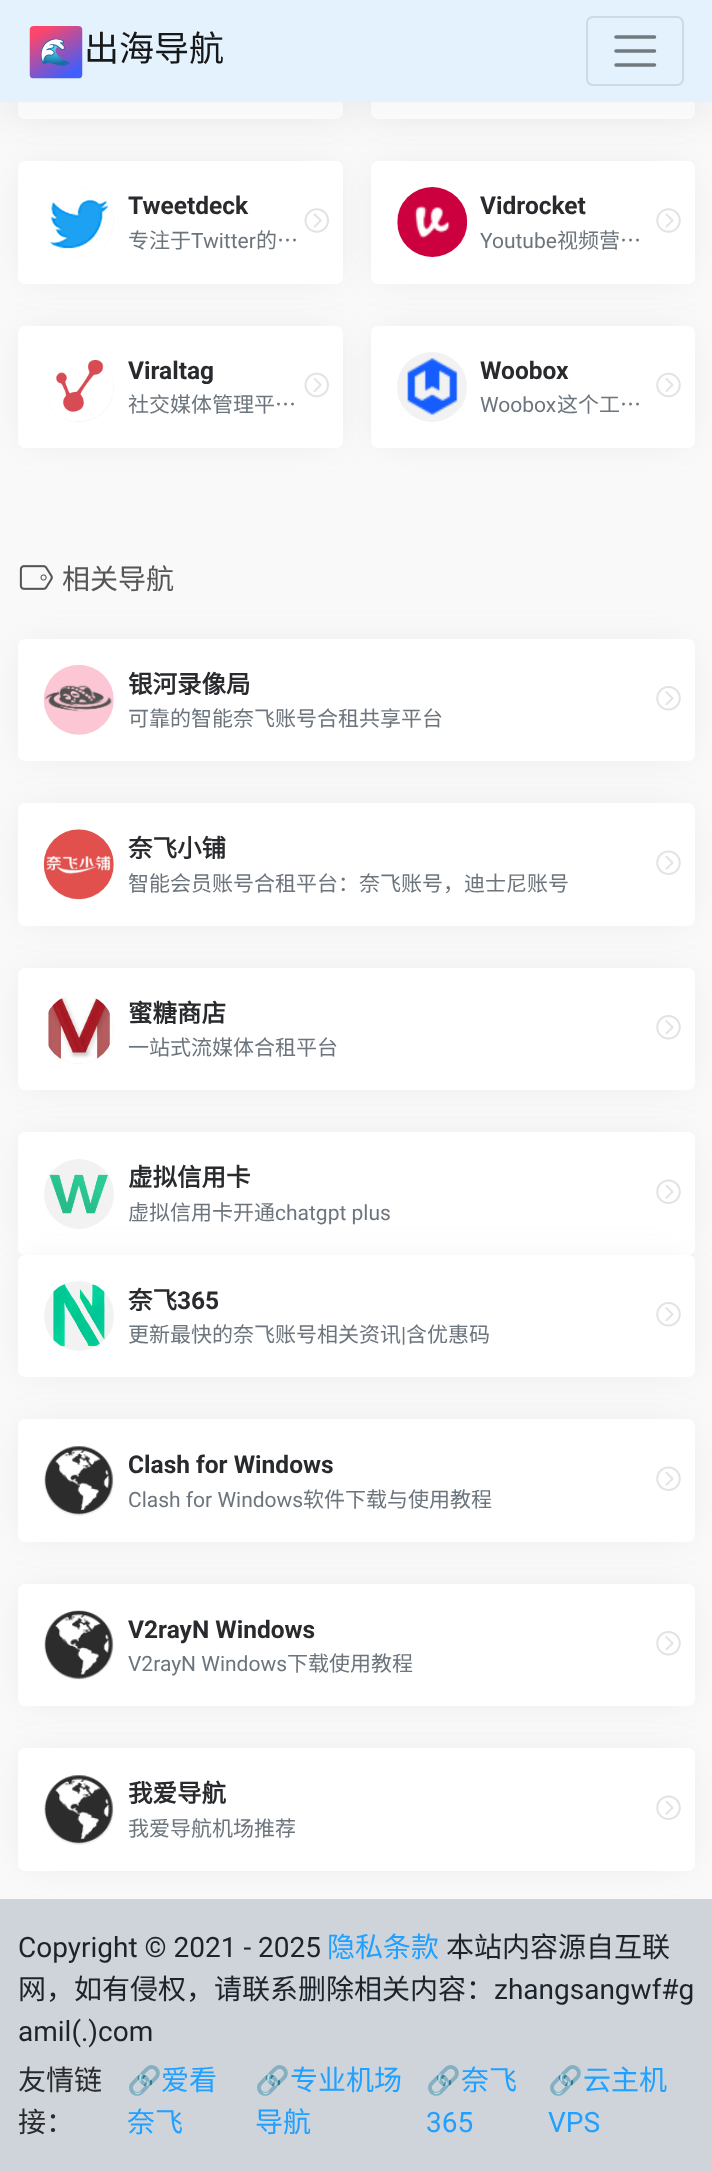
async function draw(canvas) {
  canvas.width = 712;
  canvas.height = 2171;
  const ctx = canvas.getContext('2d');
  ctx.miterLimit = 4;
  ctx.fontKerning = 'normal';
  function label(s, x, y, font, color) {
    ctx.font = font;
    ctx.fillStyle = color;
    ctx.fillText(s, x, y);
  }
  function rect(x, y, w, h, color) {
    ctx.fillStyle = color;
    ctx.fillRect(x, y, w, h);
  }
  function roundedRect(x, y, w, h, r, color) {
    ctx.fillStyle = color;
    ctx.beginPath();
    ctx.roundRect(x, y, w, h, r);
    ctx.fill();
  }
  async function image(src, x, y, w, h) {
    const img = new Image();
    img.src = src;
    await img.decode();
    ctx.drawImage(img, x, y, w, h);
  }
  let path;

  rect(0, 0, 712, 2171, '#f9f9f9');
  ctx.fillStyle = '#9e9e9e33';
  ctx.filter = 'blur(17.5px)';
  ctx.beginPath();
  ctx.rect(26, 5, 308, 105);
  ctx.fill();
  ctx.filter = 'none';
  roundedRect(18, -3, 325, 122, 7, '#fff');
  ctx.fillStyle = '#9e9e9e33';
  ctx.filter = 'blur(17.5px)';
  ctx.beginPath();
  ctx.rect(380, 5, 306, 105);
  ctx.fill();
  ctx.filter = 'none';
  roundedRect(371, -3, 324, 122, 7, '#fff');
  ctx.fillStyle = '#9e9e9e33';
  ctx.filter = 'blur(17.5px)';
  ctx.beginPath();
  ctx.rect(26, 170, 308, 105);
  ctx.fill();
  ctx.filter = 'none';
  roundedRect(18, 161, 325, 123, 7, '#fff');
  await image('assets/img3.png', 304, 208, 25, 25);
  ctx.fillStyle = '#9e9e9e33';
  ctx.filter = 'blur(17.5px)';
  ctx.beginPath();
  ctx.rect(380, 170, 306, 105);
  ctx.fill();
  ctx.filter = 'none';
  roundedRect(371, 161, 324, 123, 7, '#fff');
  ctx.fillStyle = '#0a0a0a0d';
  ctx.filter = 'blur(22px)';
  ctx.beginPath();
  ctx.rect(-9, -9, 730, 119);
  ctx.fill();
  ctx.filter = 'none';
  rect(0, 0, 712, 102, '#e3f2fd');
  await image('assets/img1.png', 29, 26, 54, 53);
  label('出海导航', 84, 61, '35px Noto Sans CJK SC', '#171819');
  ctx.beginPath();
  ctx.roundRect(587, 17, 96, 68, 6);
  ctx.strokeStyle = '#ccdae4';
  ctx.lineWidth = 2;
  ctx.stroke();
  path = new Path2D('M616 37H654.5M616 51H654.5M616 65H654.5');
  ctx.strokeStyle = '#72797f';
  ctx.lineWidth = 3.5;
  ctx.lineCap = 'round';
  ctx.stroke(path);
  ctx.fillStyle = '#f2f2f2';
  ctx.beginPath();
  ctx.arc(79, 222, 35, 0, 2 * Math.PI);
  ctx.fill();
  await image('assets/img2.png', 44, 187, 70, 70);
  label('Tweetdeck', 128, 214, 'bold 24.5px Roboto', '#282a2d');
  label('专注于', 128, 248, '21px Noto Sans CJK SC', '#6c757d');
  label('Twitter', 191, 248, '21px Roboto', '#6c757d');
  label('的…', 256, 248, '21px Noto Sans CJK SC', '#6c757d');
  ctx.fillStyle = '#f2f2f2';
  ctx.beginPath();
  ctx.arc(432, 222, 35, 0, 2 * Math.PI);
  ctx.fill();
  await image('assets/img4.png', 397, 187, 71, 70);
  label('Vidrocket', 480, 214, 'bold 24.5px Roboto', '#282a2d');
  label('Youtube', 480, 248, '21px Roboto', '#6c757d');
  label('视频营…', 557, 248, '21px Noto Sans CJK SC', '#6c757d');
  await image('assets/img5.png', 656, 208, 25, 25);
  ctx.fillStyle = '#9e9e9e33';
  ctx.filter = 'blur(17.5px)';
  ctx.beginPath();
  ctx.rect(26, 334, 308, 105);
  ctx.fill();
  ctx.filter = 'none';
  roundedRect(18, 326, 325, 122, 7, '#fff');
  ctx.fillStyle = '#f2f2f2';
  ctx.beginPath();
  ctx.arc(79, 387, 35, 0, 2 * Math.PI);
  ctx.fill();
  await image('assets/img6.png', 44, 352, 70, 69);
  label('Viraltag', 128, 379, 'bold 24.5px Roboto', '#282a2d');
  label('社交媒体管理平…', 128, 412, '21px Noto Sans CJK SC', '#6c757d');
  await image('assets/img7.png', 304, 372, 25, 26);
  ctx.fillStyle = '#9e9e9e33';
  ctx.filter = 'blur(17.5px)';
  ctx.beginPath();
  ctx.rect(380, 334, 306, 105);
  ctx.fill();
  ctx.filter = 'none';
  roundedRect(371, 326, 324, 122, 7, '#fff');
  ctx.fillStyle = '#f2f2f2';
  ctx.beginPath();
  ctx.arc(432, 387, 35, 0, 2 * Math.PI);
  ctx.fill();
  await image('assets/img8.png', 407, 358, 51, 57);
  label('Woobox', 480, 379, 'bold 24.5px Roboto', '#282a2d');
  label('Woobox', 480, 412, '21px Roboto', '#6c757d');
  label('这个工…', 557, 412, '21px Noto Sans CJK SC', '#6c757d');
  await image('assets/img9.png', 656, 372, 25, 26);
  await image('assets/img10.png', 19, 565, 34, 25);
  label('相关导航', 62, 589, '28px Noto Sans CJK SC', '#555');
  ctx.fillStyle = '#9e9e9e33';
  ctx.filter = 'blur(17.5px)';
  ctx.beginPath();
  ctx.rect(26, 648, 660, 105);
  ctx.fill();
  ctx.filter = 'none';
  roundedRect(18, 639, 677, 122, 7, '#fff');
  ctx.fillStyle = '#f2f2f2';
  ctx.beginPath();
  ctx.arc(79, 700, 35, 0, 2 * Math.PI);
  ctx.fill();
  await image('assets/img11.png', 44, 665, 70, 70);
  label('银河录像局', 128, 693, 'bold 24.5px Noto Sans CJK SC', '#282a2d');
  label('可靠的智能奈飞账号合租共享平台', 128, 726, '21px Noto Sans CJK SC', '#6c757d');
  await image('assets/img12.png', 656, 686, 25, 25);
  ctx.fillStyle = '#9e9e9e33';
  ctx.filter = 'blur(17.5px)';
  ctx.beginPath();
  ctx.rect(26, 812, 660, 105);
  ctx.fill();
  ctx.filter = 'none';
  roundedRect(18, 803, 677, 123, 7, '#fff');
  ctx.fillStyle = '#f2f2f2';
  ctx.beginPath();
  ctx.arc(79, 865, 35, 0, 2 * Math.PI);
  ctx.fill();
  await image('assets/img13.png', 43, 829, 71, 71);
  label('奈飞小铺', 128, 857, 'bold 24.5px Noto Sans CJK SC', '#282a2d');
  label('智能会员账号合租平台：奈飞账号，迪士尼账号', 128, 891, '21px Noto Sans CJK SC', '#6c757d');
  await image('assets/img14.png', 656, 850, 25, 25);
  ctx.fillStyle = '#9e9e9e33';
  ctx.filter = 'blur(17.5px)';
  ctx.beginPath();
  ctx.rect(26, 977, 660, 105);
  ctx.fill();
  ctx.filter = 'none';
  roundedRect(18, 968, 677, 122, 7, '#fff');
  ctx.fillStyle = '#f2f2f2';
  ctx.beginPath();
  ctx.arc(79, 1029, 35, 0, 2 * Math.PI);
  ctx.fill();
  await image('assets/img15.png', 44, 994, 70, 70);
  label('蜜糖商店', 128, 1022, 'bold 24.5px Noto Sans CJK SC', '#282a2d');
  label('一站式流媒体合租平台', 128, 1055, '21px Noto Sans CJK SC', '#6c757d');
  await image('assets/img12.png', 656, 1015, 25, 25);
  ctx.fillStyle = '#9e9e9e33';
  ctx.filter = 'blur(17.5px)';
  ctx.beginPath();
  ctx.rect(26, 1141, 660, 105);
  ctx.fill();
  ctx.filter = 'none';
  roundedRect(18, 1132, 677, 123, 7, '#fff');
  ctx.fillStyle = '#f2f2f2';
  ctx.beginPath();
  ctx.arc(79, 1194, 35, 0, 2 * Math.PI);
  ctx.fill();
  await image('assets/img16.png', 49, 1174, 59, 40);
  label('虚拟信用卡', 128, 1186, 'bold 24.5px Noto Sans CJK SC', '#282a2d');
  label('虚拟信用卡开通', 128, 1220, '21px Noto Sans CJK SC', '#6c757d');
  label('chatgpt plus', 275, 1220, '21px Roboto', '#6c757d');
  await image('assets/img14.png', 656, 1179, 25, 25);
  ctx.fillStyle = '#9e9e9e33';
  ctx.filter = 'blur(17.5px)';
  ctx.beginPath();
  ctx.rect(26, 1264, 660, 105);
  ctx.fill();
  ctx.filter = 'none';
  roundedRect(18, 1255, 677, 122, 7, '#fff');
  ctx.fillStyle = '#f2f2f2';
  ctx.beginPath();
  ctx.arc(79, 1316, 35, 0, 2 * Math.PI);
  ctx.fill();
  await image('assets/img17.png', 53, 1284, 52, 63);
  label('奈飞', 128, 1309, 'bold 24.5px Noto Sans CJK SC', '#282a2d');
  label('365', 177, 1309, 'bold 24.5px Roboto', '#282a2d');
  label('更新最快的奈飞账号相关资讯', 128, 1342, '21px Noto Sans CJK SC', '#6c757d');
  label('|', 401, 1342, '21px Roboto', '#6c757d');
  label('含优惠码', 406, 1342, '21px Noto Sans CJK SC', '#6c757d');
  await image('assets/img12.png', 656, 1302, 25, 25);
  ctx.fillStyle = '#9e9e9e33';
  ctx.filter = 'blur(17.5px)';
  ctx.beginPath();
  ctx.rect(26, 1428, 660, 105);
  ctx.fill();
  ctx.filter = 'none';
  roundedRect(18, 1419, 677, 123, 7, '#fff');
  ctx.fillStyle = '#f2f2f2';
  ctx.beginPath();
  ctx.arc(79, 1481, 35, 0, 2 * Math.PI);
  ctx.fill();
  await image('assets/img18.png', 44, 1446, 69, 69);
  label('Clash for Windows', 128, 1473, 'bold 24.5px Roboto', '#282a2d');
  label('Clash for Windows', 128, 1507, '21px Roboto', '#6c757d');
  label('软件下载与使用教程', 303, 1507, '21px Noto Sans CJK SC', '#6c757d');
  await image('assets/img14.png', 656, 1466, 25, 25);
  ctx.fillStyle = '#9e9e9e33';
  ctx.filter = 'blur(17.5px)';
  ctx.beginPath();
  ctx.rect(26, 1593, 660, 105);
  ctx.fill();
  ctx.filter = 'none';
  roundedRect(18, 1584, 677, 122, 7, '#fff');
  ctx.fillStyle = '#f2f2f2';
  ctx.beginPath();
  ctx.arc(79, 1645, 35, 0, 2 * Math.PI);
  ctx.fill();
  await image('assets/img19.png', 44, 1610, 69, 69);
  label('V2rayN Windows', 128, 1638, 'bold 24.5px Roboto', '#282a2d');
  label('V2rayN Windows', 128, 1671, '21px Roboto', '#6c757d');
  label('下载使用教程', 287, 1671, '21px Noto Sans CJK SC', '#6c757d');
  await image('assets/img12.png', 656, 1631, 25, 25);
  rect(0, 1899, 712, 272, '#ced4da');
  ctx.fillStyle = '#9e9e9e33';
  ctx.filter = 'blur(17.5px)';
  ctx.beginPath();
  ctx.rect(26, 1757, 660, 105);
  ctx.fill();
  ctx.filter = 'none';
  roundedRect(18, 1748, 677, 123, 7, '#fff');
  ctx.fillStyle = '#f2f2f2';
  ctx.beginPath();
  ctx.arc(79, 1810, 35, 0, 2 * Math.PI);
  ctx.fill();
  await image('assets/img18.png', 44, 1775, 69, 69);
  label('我爱导航', 128, 1802, 'bold 24.5px Noto Sans CJK SC', '#282a2d');
  label('我爱导航机场推荐', 128, 1836, '21px Noto Sans CJK SC', '#6c757d');
  await image('assets/img14.png', 656, 1795, 25, 25);
  label('Copyright © 2021 - 2025', 18, 1957, '28px Roboto', '#1d232b');
  label('隐私条款', 327, 1957, '28px Noto Sans CJK SC', '#20a0ff');
  label('本站内容源自互联', 446, 1957, '28px Noto Sans CJK SC', '#1d232b');
  label('网，如有侵权，请联系删除相关内容：', 18, 1999, '28px Noto Sans CJK SC', '#1d232b');
  label('zhangsangwf#g', 494, 1999, '28px Roboto', '#1d232b');
  label('amil(.)com', 18, 2041, '28px Roboto', '#1d232b');
  label('友情链', 18, 2090, '28px Noto Sans CJK SC', '#282a2d');
  label('接：', 18, 2132, '28px Noto Sans CJK SC', '#282a2d');
  label('🔗', 127, 2090, '28px Noto Color Emoji', '#20a0ff');
  label('爱看', 161, 2090, '28px Noto Sans CJK SC', '#20a0ff');
  label('奈飞', 127, 2132, '28px Noto Sans CJK SC', '#20a0ff');
  label('🔗', 255, 2090, '28px Noto Color Emoji', '#20a0ff');
  label('专业机场', 290, 2090, '28px Noto Sans CJK SC', '#20a0ff');
  label('导航', 255, 2132, '28px Noto Sans CJK SC', '#20a0ff');
  label('🔗', 426, 2090, '28px Noto Color Emoji', '#20a0ff');
  label('奈飞', 461, 2090, '28px Noto Sans CJK SC', '#20a0ff');
  label('365', 426, 2132, '28px Roboto', '#20a0ff');
  label('🔗', 548, 2090, '28px Noto Color Emoji', '#20a0ff');
  label('云主机', 583, 2090, '28px Noto Sans CJK SC', '#20a0ff');
  label('VPS', 548, 2132, '28px Roboto', '#20a0ff');
}

draw(document.querySelector('canvas'));
